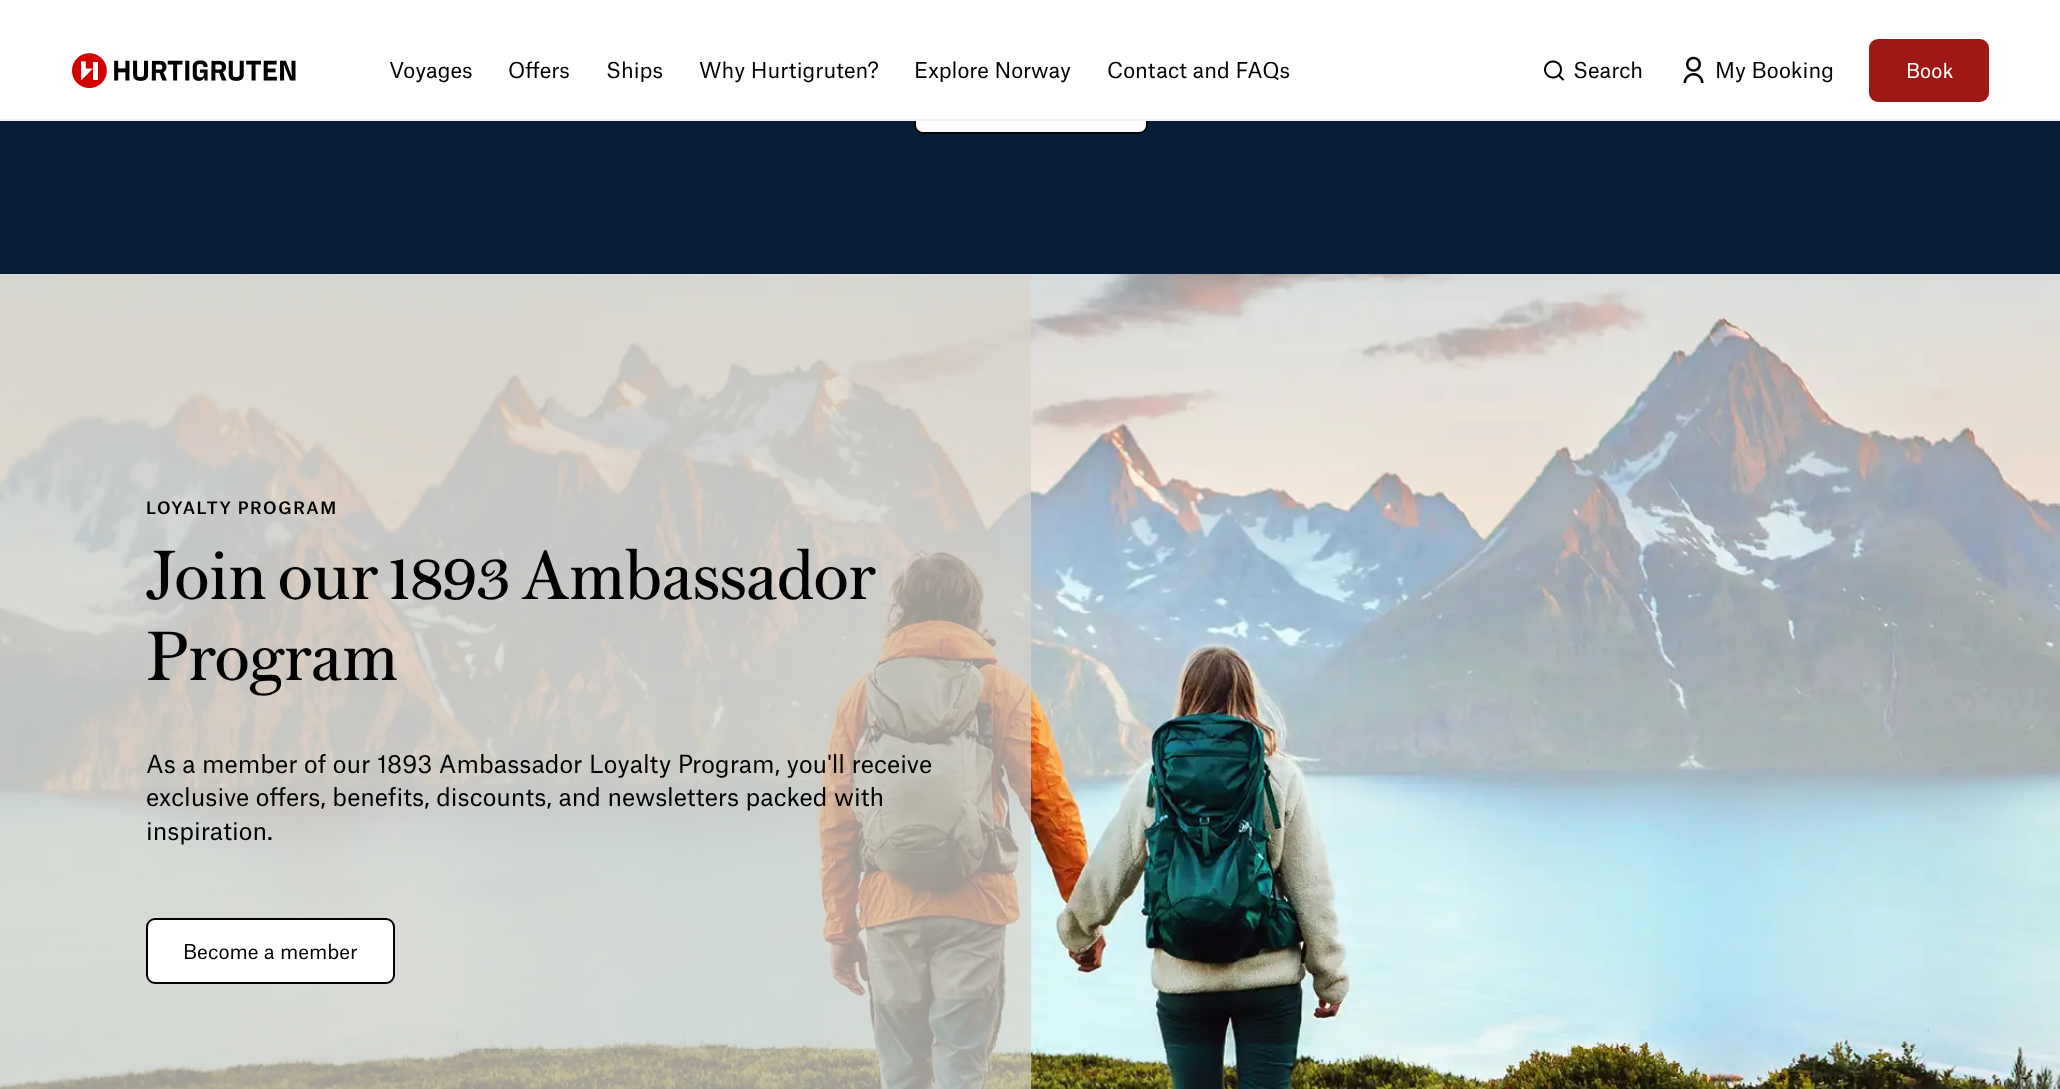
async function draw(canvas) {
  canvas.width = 2060;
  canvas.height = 1089;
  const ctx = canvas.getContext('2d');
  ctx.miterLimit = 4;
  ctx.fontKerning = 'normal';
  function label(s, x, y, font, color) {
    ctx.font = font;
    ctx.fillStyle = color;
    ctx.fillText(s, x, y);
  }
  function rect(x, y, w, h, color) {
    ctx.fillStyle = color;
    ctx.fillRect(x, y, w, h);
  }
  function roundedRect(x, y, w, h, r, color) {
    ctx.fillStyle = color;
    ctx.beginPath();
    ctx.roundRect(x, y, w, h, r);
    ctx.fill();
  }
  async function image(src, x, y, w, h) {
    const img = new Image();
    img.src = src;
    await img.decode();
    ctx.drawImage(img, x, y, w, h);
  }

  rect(0, 0, 2060, 1089, '#051d39');
  ctx.fillStyle = '#fff';
  ctx.beginPath();
  ctx.roundRect(915, 70, 232, 63, 8);
  ctx.fill();
  ctx.strokeStyle = '#000';
  ctx.lineWidth = 2;
  ctx.stroke();
  rect(0, 0, 2060, 119, '#fff');
  rect(0, 119, 2060, 2, '#f2f2f2');
  await image('assets/img1.png', 72, 53, 224, 36);
  label('Voyages', 389, 78, '21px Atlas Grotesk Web', '#000');
  label('Offers', 508, 78, '21px Atlas Grotesk Web', '#000');
  label('Ships', 606, 78, '21px Atlas Grotesk Web', '#000');
  label('Why Hurtigruten?', 699, 78, '21px Atlas Grotesk Web', '#000');
  label('Explore Norway', 914, 78, '21px Atlas Grotesk Web', '#000');
  label('Contact and FAQs', 1107, 78, '21px Atlas Grotesk Web', '#000');
  await image('assets/img2.png', 1544, 60, 21, 21);
  label('Search', 1573, 78, '21px Atlas Grotesk Web', '#000');
  await image('assets/img3.png', 1683, 56, 21, 27);
  label('My Booking', 1715, 78, '21px Atlas Grotesk Web', '#000');
  roundedRect(1869, 39, 120, 63, 9, '#9e1915');
  label('Book', 1906, 78, '19.5px Atlas Grotesk Web', '#fff');
  await image('assets/img4.png', 0, 274, 2060, 815);
  rect(0, 275, 1031, 814, '#d7d2cbb8');
  ctx.letterSpacing = '1.5px';
  label('LOYALTY PROGRAM', 146, 514, '500 16.5px Atlas Grotesk Web', '#000');
  ctx.letterSpacing = '0px';
  label('Join our 1893 Ambassador', 146, 599, '73.5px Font', '#000');
  label('Program', 146, 680, '73.5px Font', '#000');
  label('As a member of our 1893 Ambassador Loyalty Program, you\'ll receive', 146, 773, '24px Atlas Grotesk Web', '#000');
  label('exclusive offers, benefits, discounts, and newsletters packed with', 146, 806, '24px Atlas Grotesk Web', '#000');
  label('inspiration.', 146, 840, '24px Atlas Grotesk Web', '#000');
  ctx.fillStyle = '#fff';
  ctx.beginPath();
  ctx.roundRect(147, 919, 247, 64, 8);
  ctx.fill();
  ctx.stroke();
  label('Become a member', 183, 959, '19.5px Atlas Grotesk Web', '#000');
}

draw(document.querySelector('canvas'));
